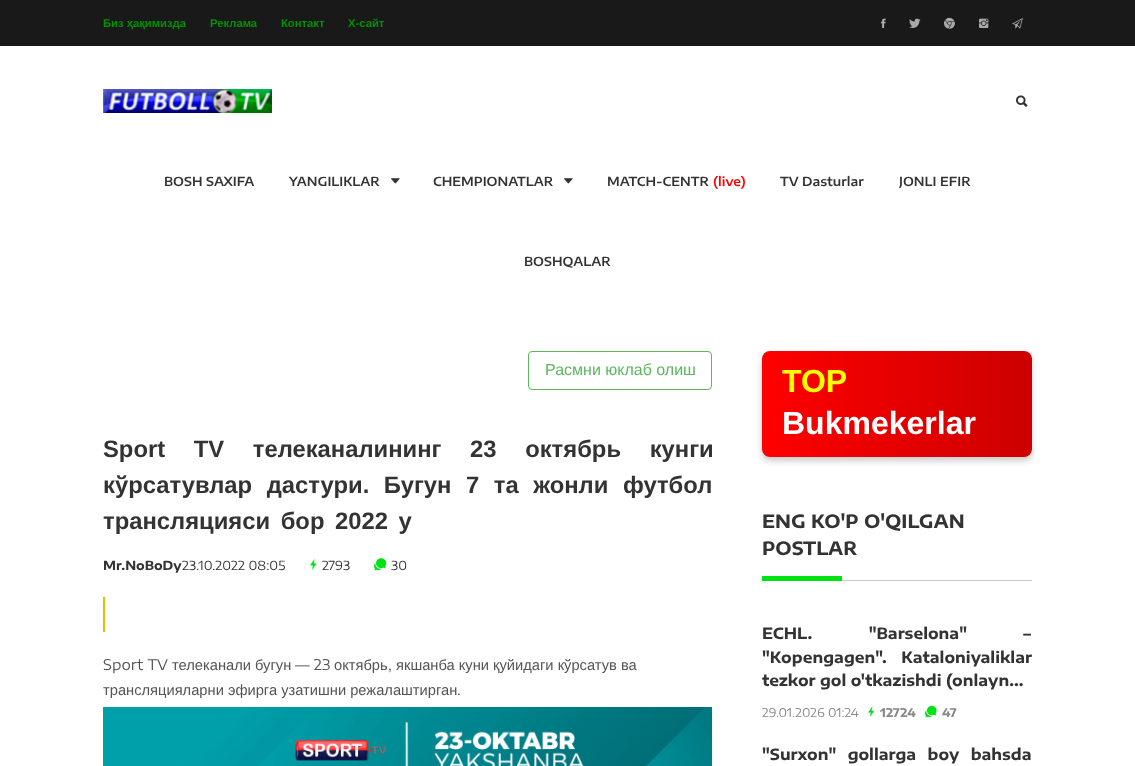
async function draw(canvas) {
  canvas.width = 1135;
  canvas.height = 766;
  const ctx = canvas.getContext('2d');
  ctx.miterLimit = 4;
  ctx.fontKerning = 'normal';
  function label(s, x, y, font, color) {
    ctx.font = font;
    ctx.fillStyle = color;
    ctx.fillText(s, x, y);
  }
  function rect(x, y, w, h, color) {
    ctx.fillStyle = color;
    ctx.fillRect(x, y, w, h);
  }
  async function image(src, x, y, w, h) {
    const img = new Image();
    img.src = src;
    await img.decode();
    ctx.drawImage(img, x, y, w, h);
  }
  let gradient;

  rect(0, 0, 1135, 766, '#fff');
  rect(0, 0, 1135, 46, '#191919');
  label('Биз ҳақимизда', 103, 27, 'bold 11.25px Liberation Sans', '#009200');
  label('Реклама', 210, 27, 'bold 11.25px Liberation Sans', '#009200');
  label('Контакт', 281, 27, 'bold 11.25px Liberation Sans', '#009200');
  label('Х-сайт', 348, 27, 'bold 11.25px Liberation Sans', '#009200');
  await image('assets/img1.png', 881, 18, 5, 10);
  await image('assets/img2.png', 909, 18, 12, 10);
  await image('assets/img3.png', 944, 17, 11, 12);
  await image('assets/img4.png', 979, 18, 10, 10);
  await image('assets/img5.png', 1012, 18, 11, 11);
  await image('assets/img6.png', 103, 89, 169, 24);
  await image('assets/img7.png', 1016, 95, 12, 12);
  label('BOSH SAXIFA', 164, 186, '600 12.5px Encode Sans Expanded', '#333');
  label('YANGILIKLAR', 289, 186, '600 12.5px Encode Sans Expanded', '#333');
  await image('assets/img8.png', 391, 178, 9, 6);
  label('CHEMPIONATLAR', 433, 186, '600 12.5px Encode Sans Expanded', '#333');
  await image('assets/img8.png', 564, 178, 9, 6);
  label('MATCH-CENTR', 607, 186, '600 12.5px Encode Sans Expanded', '#333');
  label('(live)', 713, 186, '600 12.5px Encode Sans Expanded', '#f00');
  label('TV Dasturlar', 780, 186, '600 12.5px Encode Sans Expanded', '#333');
  label('JONLI EFIR', 899, 186, '600 12.5px Encode Sans Expanded', '#333');
  label('BOSHQALAR', 524, 266, '600 12.5px Encode Sans Expanded', '#333');
  ctx.beginPath();
  ctx.roundRect(528.5, 351.5, 183, 38, 3.5);
  ctx.strokeStyle = '#5cb85c';
  ctx.stroke();
  label('Расмни юклаб олиш', 545, 375, '16px Liberation Sans', '#5cb85c');
  ctx.wordSpacing = '22px';
  label('Sport TV телеканалининг 23 октябрь кунги', 103, 457, 'bold 23.8px Liberation Sans', '#333');
  ctx.wordSpacing = '8px';
  label('кўрсатувлар дастури. Бугун 7 та жонли футбол', 103, 493, 'bold 23.8px Liberation Sans', '#333');
  ctx.wordSpacing = '4px';
  label('трансляцияси бор 2022 y', 103, 529, 'bold 23.8px Liberation Sans', '#333');
  ctx.wordSpacing = '0px';
  label('Mr.NoBoDy', 103, 570, 'bold 12.5px Encode Sans Expanded', '#333');
  label('23.10.2022 08:05', 182, 570, '12.5px Encode Sans Expanded', '#333');
  await image('assets/img9.png', 310, 558, 7, 12);
  label('2793', 322, 570, '12.5px Encode Sans Expanded', '#333');
  await image('assets/img10.png', 374, 558, 13, 13);
  label('30', 391, 570, '12.5px Encode Sans Expanded', '#333');
  rect(103, 597, 2, 35, '#f9b500');
  label('Sport TV', 103, 670, '14.7px Encode Sans Expanded', '#555');
  label('телеканали бугун', 172, 670, '14.7px Liberation Sans', '#555');
  label('— 23', 295, 670, '14.7px Encode Sans Expanded', '#555');
  label('октябрь', 334, 670, '14.7px Liberation Sans', '#555');
  label(',', 388, 670, '14.7px Encode Sans Expanded', '#555');
  label('якшанба куни қуйидаги кўрсатув ва', 396, 670, '14.7px Liberation Sans', '#555');
  label('трансляцияларни эфирга узатишни режалаштирган', 103, 695, '14.7px Liberation Sans', '#555');
  label('.', 457, 695, '14.7px Encode Sans Expanded', '#555');
  await image('assets/img11.png', 103, 707, 609, 59);
  ctx.fillStyle = '#00000033';
  ctx.filter = 'blur(3px)';
  ctx.beginPath();
  ctx.roundRect(762, 355, 270, 106, 8);
  ctx.fill();
  ctx.filter = 'none';
  gradient = ctx.createLinearGradient(762, 404, 1032, 404);
  gradient.addColorStop(0, '#f00');
  gradient.addColorStop(1, '#c00');
  ctx.fillStyle = gradient;
  ctx.beginPath();
  ctx.roundRect(762, 351, 270, 106, 8);
  ctx.fill();
  label('TOP', 782, 392, 'bold 32px Liberation Sans', '#ff0');
  label('Bukmekerlar', 782, 434, 'bold 32px Liberation Sans', '#fff');
  label('ENG KO\'P O\'QILGAN', 762, 528, 'bold 18.25px Encode Sans Expanded', '#333');
  label('POSTLAR', 762, 555, 'bold 18.25px Encode Sans Expanded', '#333');
  rect(762, 576, 80, 5, '#00e211');
  rect(842, 580, 190, 1, '#ccc');
  ctx.save();
  ctx.beginPath();
  ctx.rect(762, 621, 270, 101);
  ctx.clip();
  ctx.wordSpacing = '52px';
  label('ECHL. "Barselona" –', 762, 639, 'bold 15.4px Encode Sans Expanded', '#333');
  ctx.wordSpacing = '10px';
  label('"Kopengagen". Kataloniyaliklar', 762, 663, 'bold 15.4px Encode Sans Expanded', '#333');
  ctx.restore();
  label('tezkor gol o\'tkazishdi (onlayn...', 762, 686, 'bold 15.4px Encode Sans Expanded', '#333');
  label('29.01.2026 01:24', 762, 717, '12px Encode Sans Expanded', '#888');
  await image('assets/img12.png', 868, 706, 7, 11);
  label('12724', 880, 717, 'bold 12px Encode Sans Expanded', '#888');
  await image('assets/img13.png', 925, 705, 12, 13);
  label('47', 942, 717, 'bold 12px Encode Sans Expanded', '#888');
  ctx.wordSpacing = '7px';
  label('"Surxon" gollarga boy bahsda', 762, 760, 'bold 15.4px Encode Sans Expanded', '#333');
}

draw(document.querySelector('canvas'));
